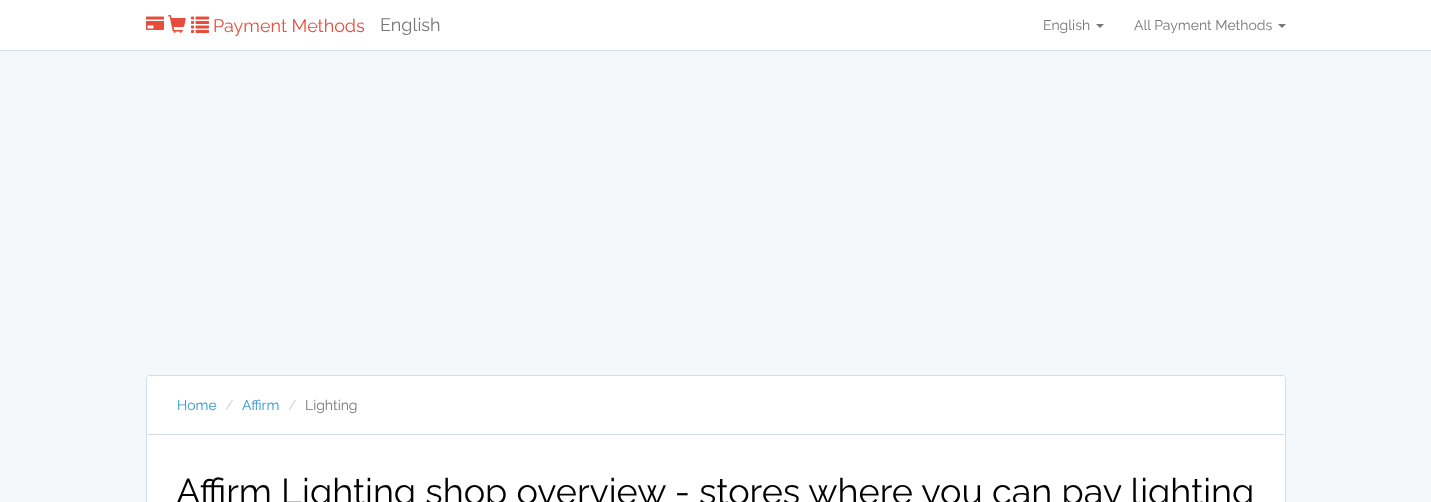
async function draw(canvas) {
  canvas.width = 1431;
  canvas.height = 502;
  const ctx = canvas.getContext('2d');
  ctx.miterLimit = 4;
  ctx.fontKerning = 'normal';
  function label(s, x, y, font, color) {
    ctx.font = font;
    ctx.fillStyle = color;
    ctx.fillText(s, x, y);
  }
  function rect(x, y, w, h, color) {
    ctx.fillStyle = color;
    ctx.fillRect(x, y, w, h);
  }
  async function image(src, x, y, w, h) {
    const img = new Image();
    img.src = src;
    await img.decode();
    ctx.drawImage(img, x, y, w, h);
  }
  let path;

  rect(0, 0, 1431, 502, '#f5f8fa');
  rect(0, 0, 1431, 50, '#fff');
  rect(0, 50, 1431, 1, '#d3e0e9');
  await image('assets/img1.png', 146, 16, 18, 14);
  await image('assets/img2.png', 168, 15, 18, 18);
  await image('assets/img3.png', 191, 16, 18, 17);
  label('Payment Methods', 213, 32, '18px Raleway', '#e74c3c');
  label('English', 380, 31, '18px Raleway', '#777');
  label('English', 1043, 30, '14px Raleway', '#777');
  path = new Path2D('M1096 24H1104L1100 28Z');
  ctx.fill(path);
  label('All Payment Methods', 1134, 30, '14px Raleway', '#777');
  path = new Path2D('M1278 24H1286L1282 28Z');
  ctx.fill(path);
  ctx.fillStyle = '#fff';
  ctx.beginPath();
  ctx.roundRect(146.5, 375.5, 1139, 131, 3.5);
  ctx.fill();
  ctx.strokeStyle = '#d3e0e9';
  ctx.stroke();
  ctx.beginPath();
  ctx.roundRect(147, 376, 1138, 59, [3, 3, 0, 0]);
  ctx.fill();
  rect(147, 434, 1138, 1, '#d3e0e9');
  label('Home', 177, 410, '14px Raleway', '#3097d1');
  label('/', 225, 410, '14px Raleway', '#ccc');
  label('Affirm', 242, 410, '14px Raleway', '#3097d1');
  label('/', 288, 410, '14px Raleway', '#ccc');
  label('Lighting', 305, 410, '14px Raleway', '#777');
  label('Affirm Lighting shop overview - stores where you can pay lighting', 176, 504, '36px Raleway', '#000');
}

draw(document.querySelector('canvas'));
